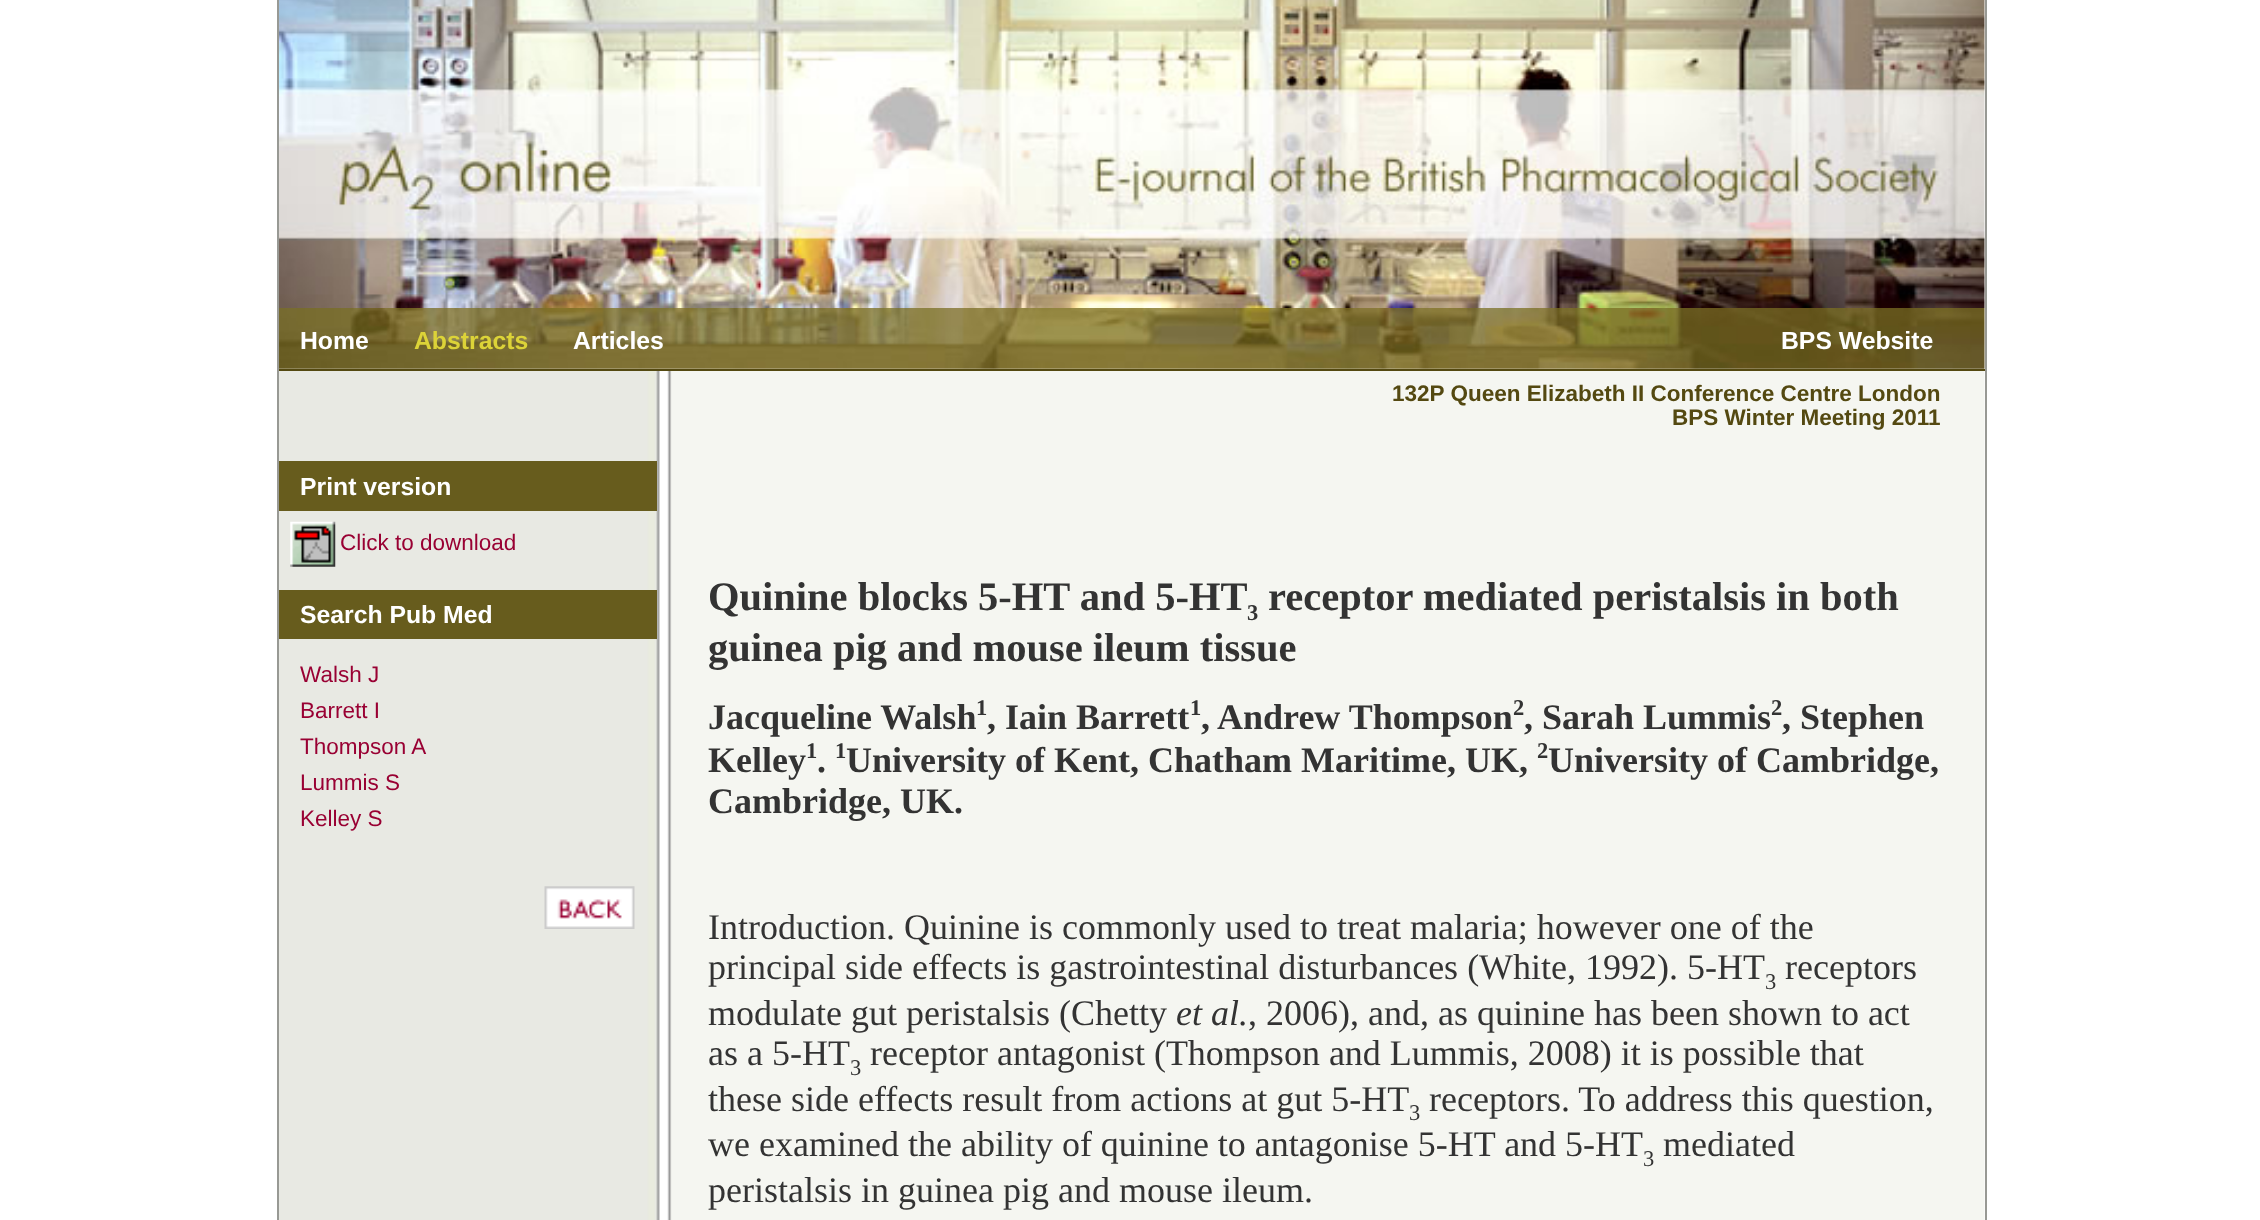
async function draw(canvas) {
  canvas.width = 2260;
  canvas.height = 1220;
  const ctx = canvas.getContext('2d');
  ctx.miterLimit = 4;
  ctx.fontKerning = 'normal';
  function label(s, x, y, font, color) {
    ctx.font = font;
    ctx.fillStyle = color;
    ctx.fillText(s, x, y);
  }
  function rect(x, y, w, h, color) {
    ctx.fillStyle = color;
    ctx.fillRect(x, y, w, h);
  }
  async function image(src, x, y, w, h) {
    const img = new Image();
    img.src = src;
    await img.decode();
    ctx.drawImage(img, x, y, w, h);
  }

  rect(0, 0, 2260, 1220, '#fff');
  rect(1985, 0, 2, 1220, '#989994');
  rect(277, 0, 2, 1220, '#989994');
  await image('assets/img1.png', 279, 0, 1706, 308);
  await image('assets/img2.png', 279, 308, 1706, 61);
  rect(279, 369, 1706, 2, '#544911');
  label('Home', 300, 349, 'bold 24.75px Liberation Sans', '#fff');
  label('Abstracts', 414, 349, 'bold 24.75px Liberation Sans', '#dcd338');
  label('Articles', 573, 349, 'bold 24.75px Liberation Sans', '#fff');
  label('BPS Website', 1781, 349, 'bold 24.75px Liberation Sans', '#fff');
  await image('assets/img3.png', 279, 371, 1706, 849);
  rect(279, 461, 378, 50, '#675c1d');
  label('Print version', 300, 495, 'bold 24.75px Liberation Sans', '#fff');
  await image('assets/img4.png', 290, 521, 46, 46);
  label('Click to download', 340, 550, '22.5px Liberation Sans', '#903');
  rect(279, 590, 378, 49, '#675c1d');
  label('Search Pub Med', 300, 623, 'bold 24.75px Liberation Sans', '#fff');
  label('Walsh J', 300, 682, '22.5px Liberation Sans', '#903');
  label('Barrett I', 300, 718, '22.5px Liberation Sans', '#903');
  label('Thompson A', 300, 754, '22.5px Liberation Sans', '#903');
  label('Lummis S', 300, 790, '22.5px Liberation Sans', '#903');
  label('Kelley S', 300, 826, '22.5px Liberation Sans', '#903');
  await image('assets/img5.png', 544, 886, 91, 43);
  label('132P Queen Elizabeth II Conference Centre London', 1392, 401, 'bold 22.5px Liberation Sans', '#544911');
  label('BPS Winter Meeting 2011', 1672, 425, 'bold 22.5px Liberation Sans', '#544911');
  label('Quinine blocks 5-HT and 5-HT', 708, 610, 'bold 40.5px Liberation Serif', '#333');
  label('3', 1247, 620, 'bold 22.5px Liberation Serif', '#333');
  label('receptor mediated peristalsis in both', 1268, 610, 'bold 40.5px Liberation Serif', '#333');
  label('guinea pig and mouse ileum tissue', 708, 661, 'bold 40.5px Liberation Serif', '#333');
  label('Jacqueline Walsh', 708, 729, 'bold 36px Liberation Serif', '#333');
  label('1', 976, 715, 'bold 22.5px Liberation Serif', '#333');
  label(', Iain Barrett', 987, 729, 'bold 36px Liberation Serif', '#333');
  label('1', 1190, 715, 'bold 22.5px Liberation Serif', '#333');
  label(', Andrew Thompson', 1201, 729, 'bold 36px Liberation Serif', '#333');
  label('2', 1513, 715, 'bold 22.5px Liberation Serif', '#333');
  label(', Sarah Lummis', 1524, 729, 'bold 36px Liberation Serif', '#333');
  label('2', 1771, 715, 'bold 22.5px Liberation Serif', '#333');
  label(', Stephen', 1782, 729, 'bold 36px Liberation Serif', '#333');
  label('Kelley', 708, 772, 'bold 36px Liberation Serif', '#333');
  label('1', 806, 758, 'bold 22.5px Liberation Serif', '#333');
  label('.', 817, 772, 'bold 36px Liberation Serif', '#333');
  label('1', 835, 758, 'bold 22.5px Liberation Serif', '#333');
  label('University of Kent, Chatham Maritime, UK,', 846, 772, 'bold 36px Liberation Serif', '#333');
  label('2', 1537, 758, 'bold 22.5px Liberation Serif', '#333');
  label('University of Cambridge,', 1548, 772, 'bold 36px Liberation Serif', '#333');
  label('Cambridge, UK.', 708, 813, 'bold 36px Liberation Serif', '#333');
  label('Introduction. Quinine is commonly used to treat malaria; however one of the', 708, 939, '36px Liberation Serif', '#333');
  label('principal side effects is gastrointestinal disturbances (White, 1992). 5-HT', 708, 979, '36px Liberation Serif', '#333');
  label('3', 1765, 989, '22.5px Liberation Serif', '#333');
  label('receptors', 1785, 979, '36px Liberation Serif', '#333');
  label('modulate gut peristalsis (Chetty', 708, 1025, '36px Liberation Serif', '#333');
  label('et al.', 1176, 1025, 'italic 36px Liberation Serif', '#333');
  label(', 2006), and, as quinine has been shown to act', 1248, 1025, '36px Liberation Serif', '#333');
  label('as a 5-HT', 708, 1065, '36px Liberation Serif', '#333');
  label('receptor antagonist (Thompson and Lummis, 2008) it is possible that', 870, 1065, '36px Liberation Serif', '#333');
  label('3', 850, 1075, '22.5px Liberation Serif', '#333');
  label('these side effects result from actions at gut 5-HT', 708, 1111, '36px Liberation Serif', '#333');
  label('3', 1409, 1120, '22.5px Liberation Serif', '#333');
  label('receptors. To address this question,', 1429, 1111, '36px Liberation Serif', '#333');
  label('we examined the ability of quinine to antagonise 5-HT and 5-HT', 708, 1156, '36px Liberation Serif', '#333');
  label('mediated', 1663, 1156, '36px Liberation Serif', '#333');
  label('3', 1643, 1166, '22.5px Liberation Serif', '#333');
  label('peristalsis in guinea pig and mouse ileum.', 708, 1202, '36px Liberation Serif', '#333');
}

draw(document.querySelector('canvas'));
